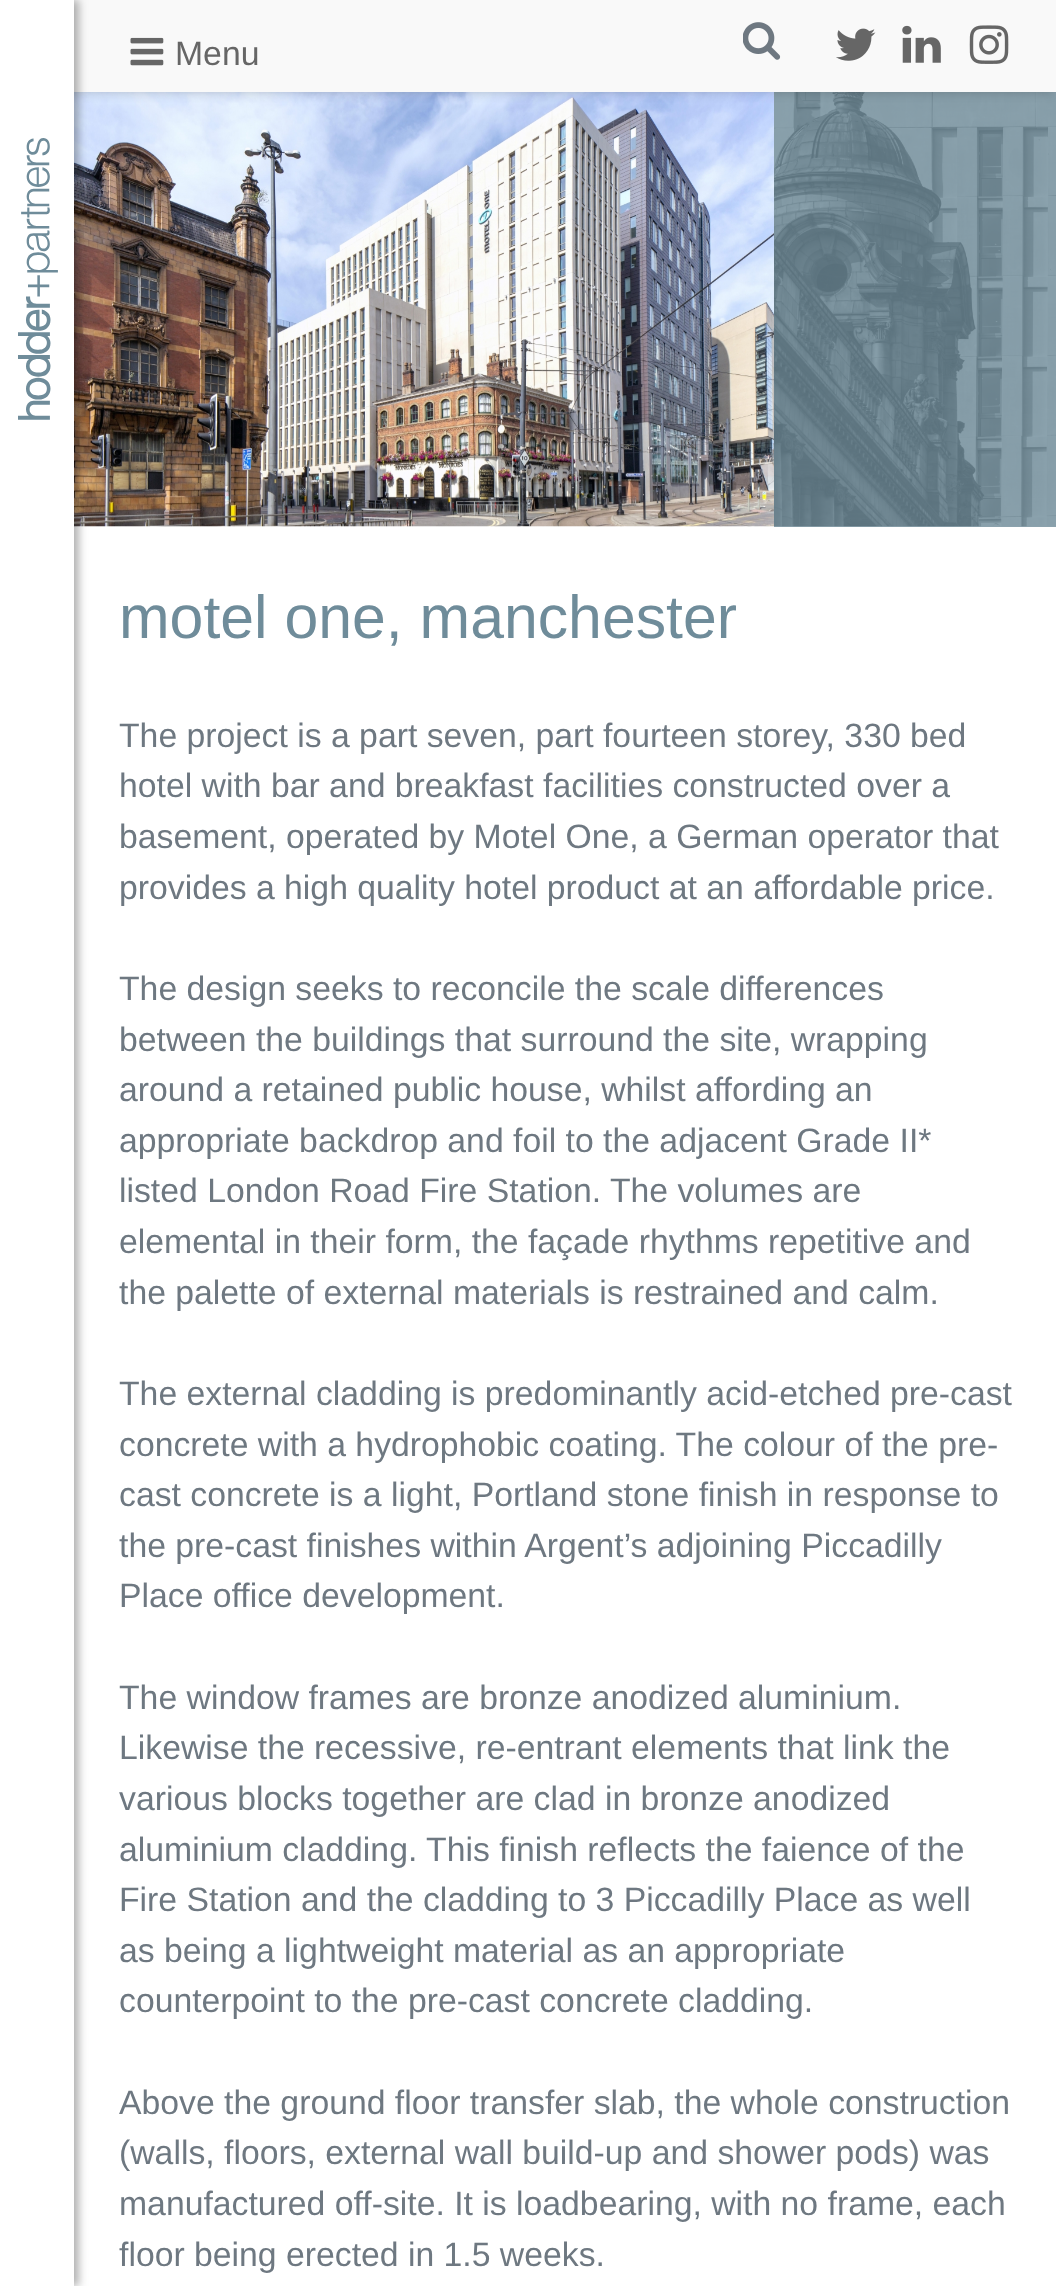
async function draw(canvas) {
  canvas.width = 1056;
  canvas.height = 2286;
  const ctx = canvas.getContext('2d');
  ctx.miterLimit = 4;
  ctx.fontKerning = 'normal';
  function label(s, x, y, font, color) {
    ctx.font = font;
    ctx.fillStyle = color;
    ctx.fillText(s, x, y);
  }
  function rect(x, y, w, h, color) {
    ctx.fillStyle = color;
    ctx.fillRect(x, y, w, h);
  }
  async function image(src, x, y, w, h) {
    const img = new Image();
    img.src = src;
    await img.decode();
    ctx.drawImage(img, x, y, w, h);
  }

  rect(0, 0, 1056, 2286, '#fff');
  rect(774, 526, 282, 1, '#8ca3ae');
  await image('assets/img9.png', 74, 526, 1, 1);
  await image('assets/img7.png', 74, 92, 700, 435);
  await image('assets/img8.png', 774, 92, 282, 435);
  ctx.fillStyle = '#00000033';
  ctx.filter = 'blur(5.5px)';
  ctx.beginPath();
  ctx.rect(5, 9, 1048, 83);
  ctx.fill();
  ctx.filter = 'none';
  rect(74, 0, 982, 92, '#f9f9f9');
  ctx.fillStyle = '#0000004d';
  ctx.filter = 'blur(4.5px)';
  ctx.beginPath();
  ctx.rect(5, 0, 74, 2286);
  ctx.fill();
  ctx.filter = 'none';
  rect(0, 0, 74, 2286, '#fff');
  await image('assets/img1.png', 18, 138, 40, 282);
  await image('assets/img2.png', 130, 37, 34, 29);
  label('Menu', 175, 65, '33.75px Liberation Sans', '#666');
  await image('assets/img3.png', 743, 22, 38, 38);
  await image('assets/img4.png', 836, 28, 40, 33);
  await image('assets/img5.png', 902, 25, 39, 38);
  await image('assets/img6.png', 969, 25, 40, 39);
  label('motel one, manchester', 119, 638, '60.75px Liberation Sans', '#6f8c9a');
  label('The project is a part seven, part fourteen storey, 330 bed', 119, 747, '33.75px Liberation Sans', '#6e7881');
  label('hotel with bar and breakfast facilities constructed over a', 119, 797, '33.75px Liberation Sans', '#6e7881');
  label('basement, operated by Motel One, a German operator that', 119, 848, '33.75px Liberation Sans', '#6e7881');
  label('provides a high quality hotel product at an affordable price.', 119, 899, '33.75px Liberation Sans', '#6e7881');
  label('The design seeks to reconcile the scale differences', 119, 1000, '33.75px Liberation Sans', '#6e7881');
  label('between the buildings that surround the site, wrapping', 119, 1051, '33.75px Liberation Sans', '#6e7881');
  label('around a retained public house, whilst affording an', 119, 1101, '33.75px Liberation Sans', '#6e7881');
  label('appropriate backdrop and foil to the adjacent Grade II*', 119, 1152, '33.75px Liberation Sans', '#6e7881');
  label('listed London Road Fire Station. The volumes are', 119, 1202, '33.75px Liberation Sans', '#6e7881');
  label('elemental in their form, the façade rhythms repetitive and', 119, 1253, '33.75px Liberation Sans', '#6e7881');
  label('the palette of external materials is restrained and calm.', 119, 1304, '33.75px Liberation Sans', '#6e7881');
  label('The external cladding is predominantly acid-etched pre-cast', 119, 1405, '33.75px Liberation Sans', '#6e7881');
  label('concrete with a hydrophobic coating. The colour of the pre-', 119, 1456, '33.75px Liberation Sans', '#6e7881');
  label('cast concrete is a light, Portland stone finish in response to', 119, 1506, '33.75px Liberation Sans', '#6e7881');
  label('the pre-cast finishes within Argent’s adjoining Piccadilly', 119, 1557, '33.75px Liberation Sans', '#6e7881');
  label('Place office development.', 119, 1607, '33.75px Liberation Sans', '#6e7881');
  label('The window frames are bronze anodized aluminium.', 119, 1709, '33.75px Liberation Sans', '#6e7881');
  label('Likewise the recessive, re-entrant elements that link the', 119, 1759, '33.75px Liberation Sans', '#6e7881');
  label('various blocks together are clad in bronze anodized', 119, 1810, '33.75px Liberation Sans', '#6e7881');
  label('aluminium cladding. This finish reflects the faience of the', 119, 1861, '33.75px Liberation Sans', '#6e7881');
  label('Fire Station and the cladding to 3 Piccadilly Place as well', 119, 1911, '33.75px Liberation Sans', '#6e7881');
  label('as being a lightweight material as an appropriate', 119, 1962, '33.75px Liberation Sans', '#6e7881');
  label('counterpoint to the pre-cast concrete cladding.', 119, 2012, '33.75px Liberation Sans', '#6e7881');
  label('Above the ground floor transfer slab, the whole construction', 119, 2114, '33.75px Liberation Sans', '#6e7881');
  label('(walls, floors, external wall build-up and shower pods) was', 119, 2164, '33.75px Liberation Sans', '#6e7881');
  label('manufactured off-site. It is loadbearing, with no frame, each', 119, 2215, '33.75px Liberation Sans', '#6e7881');
  label('floor being erected in 1.5 weeks.', 119, 2266, '33.75px Liberation Sans', '#6e7881');
}

draw(document.querySelector('canvas'));
